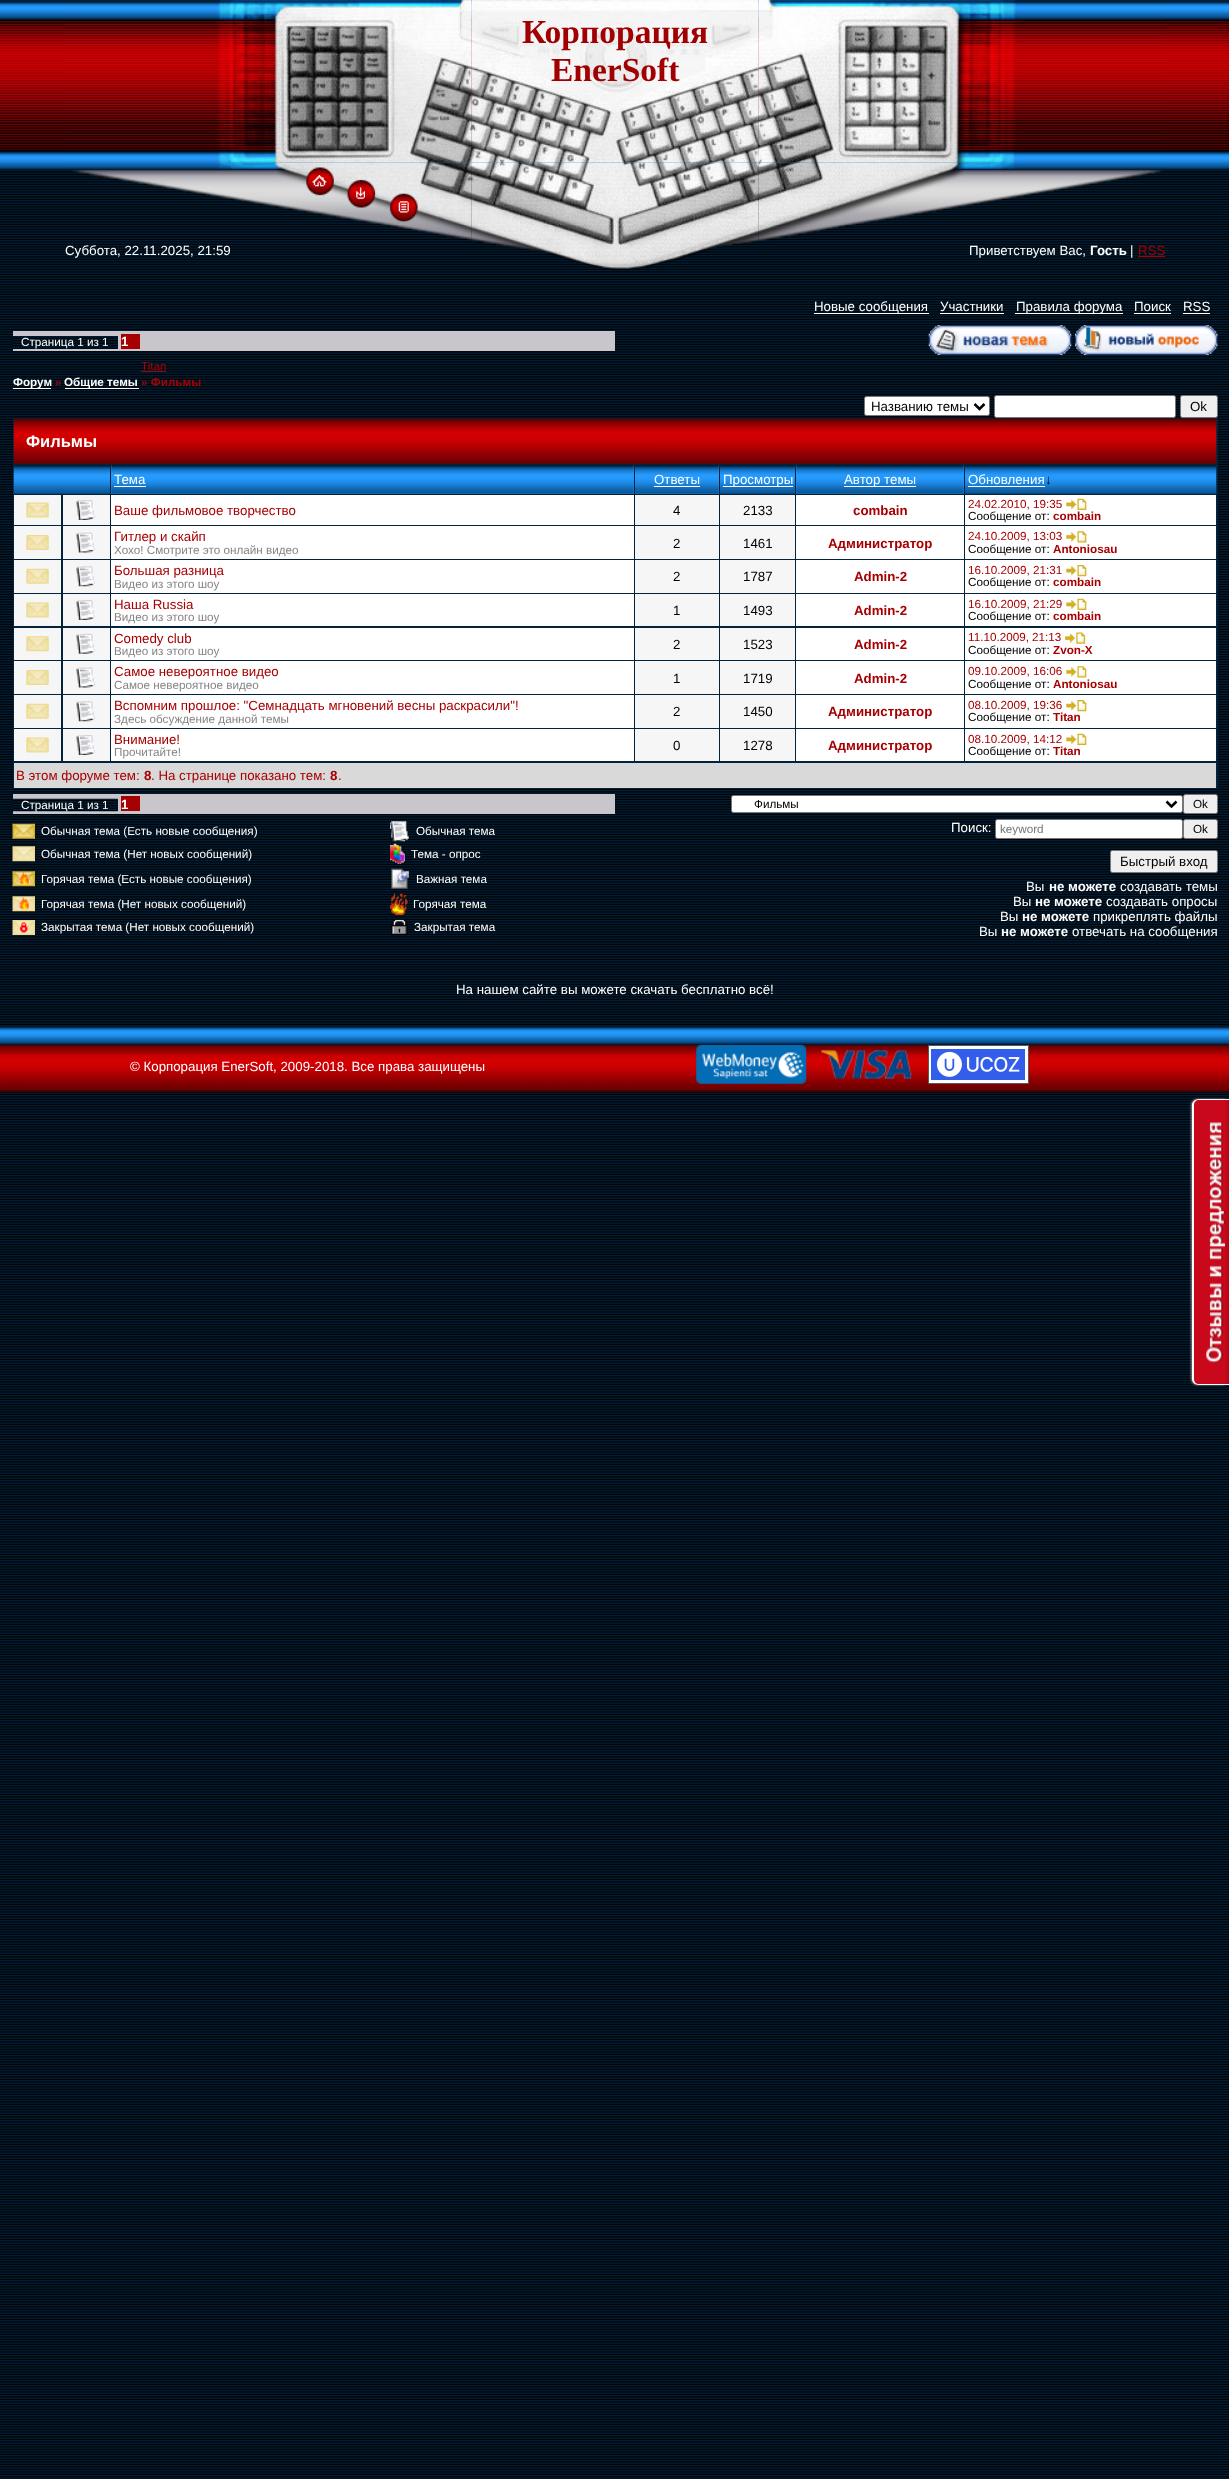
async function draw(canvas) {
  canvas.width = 1229;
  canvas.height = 2479;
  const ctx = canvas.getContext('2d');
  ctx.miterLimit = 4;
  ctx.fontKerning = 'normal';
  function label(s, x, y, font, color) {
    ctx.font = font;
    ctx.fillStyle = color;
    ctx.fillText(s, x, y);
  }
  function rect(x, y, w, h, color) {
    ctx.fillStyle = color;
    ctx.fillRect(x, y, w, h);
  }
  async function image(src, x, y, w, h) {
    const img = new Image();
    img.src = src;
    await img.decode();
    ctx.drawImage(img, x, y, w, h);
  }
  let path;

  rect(0, 0, 1229, 2479, '#fff');
  await image('assets/img1.png', 0, 169, 1229, 2310);
  await image('assets/img2.png', 0, 0, 1229, 170);
  await image('assets/img4.png', 471, 0, 288, 163);
  await image('assets/img6.png', 65, 162, 407, 63);
  await image('assets/img3.png', 65, 0, 407, 163);
  label('Корпорация', 522, 43, 'bold 33.5px Liberation Serif', '#a10003');
  label('EnerSoft', 551, 81, 'bold 33.5px Liberation Serif', '#a10003');
  await image('assets/img11.png', 758, 162, 407, 63);
  await image('assets/img5.png', 758, 0, 407, 163);
  await image('assets/img7.png', 312, 175, 15, 12);
  await image('assets/img8.png', 356, 187, 9, 12);
  await image('assets/img9.png', 398, 201, 11, 12);
  await image('assets/img10.png', 471, 162, 288, 63);
  await image('assets/img12.png', 390, 225, 82, 15);
  label('Суббота, 22.11.2025, 21:59', 65, 255, '13.3px Liberation Sans', '#fff');
  await image('assets/img14.png', 758, 225, 88, 18);
  await image('assets/img13.png', 471, 225, 288, 46);
  label('Приветствуем Вас,', 969, 255, '13.3px Liberation Sans', '#fff');
  label('Гость', 1090, 255, 'bold 13.3px Liberation Sans', '#fff');
  label('|', 1130, 255, '13.3px Liberation Sans', '#fff');
  label('RSS', 1138, 255, '13.3px Liberation Sans', '#a70003');
  rect(1138, 256, 27, 1, '#a70003');
  rect(814, 313, 115, 1, '#fff');
  label('Новые сообщения', 814, 311, '13.3px Liberation Sans', '#fff');
  label('Участники', 940, 311, '13.3px Liberation Sans', '#fff');
  rect(940, 313, 64, 1, '#fff');
  rect(1015, 313, 108, 1, '#fff');
  label('Правила форума', 1016, 311, '13.3px Liberation Sans', '#fff');
  label('Поиск', 1134, 311, '13.3px Liberation Sans', '#fff');
  rect(1134, 313, 37, 1, '#fff');
  label('RSS', 1183, 311, '13.3px Liberation Sans', '#fff');
  rect(1183, 313, 27, 1, '#fff');
  rect(13, 331, 602, 20, '#c8c6cb');
  rect(13, 336, 105, 13, '#03223c');
  await image('assets/img15.png', 12, 336, 106, 13);
  label('Страница 1 из 1', 21, 346, '11.7px Liberation Sans', '#fff');
  rect(121, 334, 19, 15, '#a70003');
  label('1', 121, 346, 'bold 13.3px Liberation Sans', '#fff');
  await image('assets/img16.png', 928, 325, 144, 30);
  await image('assets/img17.png', 1075, 325, 143, 30);
  label('Titan', 141, 370, '11.7px Liberation Sans', '#a70003');
  rect(141, 371, 25, 1, '#a70003');
  rect(13, 388, 38, 1, '#fff');
  label('Форум', 13, 386, 'bold 11.7px Liberation Sans', '#fff');
  label('»', 55, 386, 'bold 11.7px Liberation Sans', '#a70003');
  rect(65, 388, 74, 1, '#fff');
  label('Общие темы', 64, 386, 'bold 11.7px Liberation Sans', '#fff');
  label('» Фильмы', 141, 386, 'bold 11.7px Liberation Sans', '#a70003');
  ctx.fillStyle = '#fff';
  ctx.beginPath();
  ctx.roundRect(864.5, 396.5, 125, 19, 2);
  ctx.fill();
  ctx.strokeStyle = '#767676';
  ctx.stroke();
  path = new Path2D('M974.5 404L979.5 409L984.5 404');
  ctx.strokeStyle = '#000';
  ctx.lineWidth = 2.5;
  ctx.stroke(path);
  label('Названию темы', 871, 411, '13.3px Liberation Sans', '#000');
  ctx.fillStyle = '#fff';
  ctx.beginPath();
  ctx.roundRect(994.5, 395.5, 181, 22, 2);
  ctx.fill();
  ctx.strokeStyle = '#767676';
  ctx.lineWidth = 1;
  ctx.stroke();
  ctx.fillStyle = '#efefef';
  ctx.beginPath();
  ctx.roundRect(1180.5, 395.5, 37, 22, 2);
  ctx.fill();
  ctx.stroke();
  label('Ok', 1190, 411, '13.3px Liberation Sans', '#000');
  rect(13, 418, 1205, 371, '#03223c');
  await image('assets/img18.png', 13, 418, 1204, 46);
  label('Фильмы', 26, 447, 'bold 16.5px Liberation Sans', '#fff');
  await image('assets/img19.png', 13, 465, 97, 29);
  rect(111, 465, 523, 29, '#2499fd');
  await image('assets/img20.png', 111, 465, 523, 29);
  label('Тема', 114, 484, '13.3px Liberation Sans', '#fff');
  rect(114, 486, 32, 1, '#fff');
  rect(635, 465, 84, 29, '#2499fd');
  await image('assets/img21.png', 635, 465, 84, 29);
  label('Ответы', 654, 484, '13.3px Liberation Sans', '#fff');
  rect(654, 486, 46, 1, '#fff');
  await image('assets/img22.png', 720, 465, 75, 29);
  rect(723, 486, 70, 1, '#fff');
  label('Просмотры', 723, 484, '13.3px Liberation Sans', '#fff');
  rect(796, 465, 168, 29, '#2499fd');
  await image('assets/img23.png', 796, 465, 168, 29);
  rect(844, 486, 72, 1, '#fff');
  label('Автор темы', 844, 484, '13.3px Liberation Sans', '#fff');
  await image('assets/img24.png', 965, 465, 252, 29);
  label('Обновления', 968, 484, '13.3px Liberation Sans', '#fff');
  rect(968, 486, 77, 1, '#fff');
  label('↓', 1045, 484, '13.3px Liberation Sans', '#000');
  rect(14, 495, 47, 30, '#f6f6f6');
  await image('assets/img25.png', 26, 502, 23, 16);
  rect(63, 495, 47, 30, '#f6f6f6');
  await image('assets/img26.png', 76, 500, 19, 20);
  rect(111, 495, 523, 30, '#fff');
  label('Ваше фильмовое творчество', 114, 515, '13.3px Liberation Sans', '#a70003');
  rect(635, 495, 84, 30, '#f6f6f6');
  label('4', 673, 515, '13.3px Liberation Sans', '#000');
  rect(720, 495, 75, 30, '#f6f6f6');
  label('2133', 743, 515, '13.3px Liberation Sans', '#000');
  rect(796, 495, 168, 30, '#fff');
  label('combain', 853, 515, 'bold 13.3px Liberation Sans', '#a70003');
  rect(965, 495, 251, 30, '#fff');
  label('24.02.2010, 19:35', 968, 508, '11.7px Liberation Sans', '#a70003');
  await image('assets/img27.png', 1066, 498, 21, 12);
  label('Сообщение от:', 968, 520, '11.7px Liberation Sans', '#000');
  label('combain', 1053, 520, 'bold 11.7px Liberation Sans', '#a70003');
  rect(14, 526, 47, 33, '#f6f6f6');
  await image('assets/img28.png', 26, 535, 23, 15);
  rect(63, 526, 47, 33, '#f6f6f6');
  await image('assets/img29.png', 76, 532, 19, 21);
  rect(111, 526, 523, 33, '#fff');
  label('Гитлер и скайп', 114, 541, '13.3px Liberation Sans', '#a70003');
  label('Хохо! Смотрите это онлайн видео', 114, 554, '11.7px Liberation Sans', '#858585');
  rect(635, 526, 84, 33, '#f6f6f6');
  label('2', 673, 548, '13.3px Liberation Sans', '#000');
  rect(720, 526, 75, 33, '#f6f6f6');
  label('1461', 743, 548, '13.3px Liberation Sans', '#000');
  rect(796, 526, 168, 33, '#fff');
  label('Администратор', 828, 548, 'bold 13.3px Liberation Sans', '#a70003');
  rect(965, 526, 251, 33, '#fff');
  label('24.10.2009, 13:03', 968, 540, '11.7px Liberation Sans', '#a70003');
  await image('assets/img30.png', 1066, 531, 21, 12);
  label('Сообщение от:', 968, 553, '11.7px Liberation Sans', '#000');
  label('Antoniosau', 1053, 553, 'bold 11.7px Liberation Sans', '#a70003');
  rect(14, 560, 47, 33, '#f6f6f6');
  await image('assets/img31.png', 26, 568, 23, 16);
  rect(63, 560, 47, 33, '#f6f6f6');
  await image('assets/img32.png', 76, 566, 19, 21);
  rect(111, 560, 523, 33, '#fff');
  label('Большая разница', 114, 575, '13.3px Liberation Sans', '#a70003');
  label('Видео из этого шоу', 114, 588, '11.7px Liberation Sans', '#858585');
  rect(635, 560, 84, 33, '#f6f6f6');
  label('2', 673, 581, '13.3px Liberation Sans', '#000');
  rect(720, 560, 75, 33, '#f6f6f6');
  label('1787', 743, 581, '13.3px Liberation Sans', '#000');
  rect(796, 560, 168, 33, '#fff');
  label('Admin-2', 854, 581, 'bold 13.3px Liberation Sans', '#a70003');
  rect(965, 560, 251, 33, '#fff');
  label('16.10.2009, 21:31', 968, 574, '11.7px Liberation Sans', '#a70003');
  await image('assets/img33.png', 1066, 565, 21, 12);
  label('Сообщение от:', 968, 586, '11.7px Liberation Sans', '#000');
  label('combain', 1053, 586, 'bold 11.7px Liberation Sans', '#a70003');
  rect(14, 594, 47, 32, '#f6f6f6');
  await image('assets/img25.png', 26, 602, 23, 16);
  rect(63, 594, 47, 32, '#f6f6f6');
  await image('assets/img26.png', 76, 600, 19, 20);
  rect(111, 594, 523, 32, '#fff');
  label('Наша Russia', 114, 609, '13.3px Liberation Sans', '#a70003');
  label('Видео из этого шоу', 114, 621, '11.7px Liberation Sans', '#858585');
  rect(635, 594, 84, 32, '#f6f6f6');
  label('1', 673, 615, '13.3px Liberation Sans', '#000');
  rect(720, 594, 75, 32, '#f6f6f6');
  label('1493', 743, 615, '13.3px Liberation Sans', '#000');
  rect(796, 594, 168, 32, '#fff');
  label('Admin-2', 854, 615, 'bold 13.3px Liberation Sans', '#a70003');
  rect(965, 594, 251, 32, '#fff');
  label('16.10.2009, 21:29', 968, 608, '11.7px Liberation Sans', '#a70003');
  await image('assets/img27.png', 1066, 598, 21, 12);
  label('Сообщение от:', 968, 620, '11.7px Liberation Sans', '#000');
  label('combain', 1053, 620, 'bold 11.7px Liberation Sans', '#a70003');
  rect(14, 628, 47, 32, '#f6f6f6');
  await image('assets/img34.png', 26, 636, 23, 16);
  rect(63, 628, 47, 32, '#f6f6f6');
  await image('assets/img35.png', 76, 633, 19, 21);
  rect(111, 628, 523, 32, '#fff');
  label('Comedy club', 114, 643, '13.3px Liberation Sans', '#a70003');
  label('Видео из этого шоу', 114, 655, '11.7px Liberation Sans', '#858585');
  rect(635, 628, 84, 32, '#f6f6f6');
  label('2', 673, 649, '13.3px Liberation Sans', '#000');
  rect(720, 628, 75, 32, '#f6f6f6');
  label('1523', 743, 649, '13.3px Liberation Sans', '#000');
  rect(796, 628, 168, 32, '#fff');
  label('Admin-2', 854, 649, 'bold 13.3px Liberation Sans', '#a70003');
  rect(965, 628, 251, 32, '#fff');
  label('11.10.2009, 21:13', 968, 641, '11.7px Liberation Sans', '#a70003');
  await image('assets/img36.png', 1064, 632, 22, 12);
  label('Сообщение от:', 968, 654, '11.7px Liberation Sans', '#000');
  label('Zvon-X', 1053, 654, 'bold 11.7px Liberation Sans', '#a70003');
  rect(14, 661, 47, 33, '#f6f6f6');
  await image('assets/img28.png', 26, 670, 23, 15);
  rect(63, 661, 47, 33, '#f6f6f6');
  await image('assets/img29.png', 76, 667, 19, 21);
  rect(111, 661, 523, 33, '#fff');
  label('Самое невероятное видео', 114, 676, '13.3px Liberation Sans', '#a70003');
  label('Самое невероятное видео', 114, 689, '11.7px Liberation Sans', '#858585');
  rect(635, 661, 84, 33, '#f6f6f6');
  label('1', 673, 683, '13.3px Liberation Sans', '#000');
  rect(720, 661, 75, 33, '#f6f6f6');
  label('1719', 743, 683, '13.3px Liberation Sans', '#000');
  rect(796, 661, 168, 33, '#fff');
  label('Admin-2', 854, 683, 'bold 13.3px Liberation Sans', '#a70003');
  rect(965, 661, 251, 33, '#fff');
  label('09.10.2009, 16:06', 968, 675, '11.7px Liberation Sans', '#a70003');
  await image('assets/img30.png', 1066, 666, 21, 12);
  label('Сообщение от:', 968, 688, '11.7px Liberation Sans', '#000');
  label('Antoniosau', 1053, 688, 'bold 11.7px Liberation Sans', '#a70003');
  rect(14, 695, 47, 33, '#f6f6f6');
  await image('assets/img31.png', 26, 703, 23, 16);
  rect(63, 695, 47, 33, '#f6f6f6');
  await image('assets/img32.png', 76, 701, 19, 21);
  rect(111, 695, 523, 33, '#fff');
  label('Вспомним прошлое: "Семнадцать мгновений весны раскрасили"!', 114, 710, '13.3px Liberation Sans', '#a70003');
  label('Здесь обсуждение данной темы', 114, 723, '11.7px Liberation Sans', '#858585');
  rect(635, 695, 84, 33, '#f6f6f6');
  label('2', 673, 716, '13.3px Liberation Sans', '#000');
  rect(720, 695, 75, 33, '#f6f6f6');
  label('1450', 743, 716, '13.3px Liberation Sans', '#000');
  rect(796, 695, 168, 33, '#fff');
  label('Администратор', 828, 716, 'bold 13.3px Liberation Sans', '#a70003');
  rect(965, 695, 251, 33, '#fff');
  label('08.10.2009, 19:36', 968, 709, '11.7px Liberation Sans', '#a70003');
  await image('assets/img33.png', 1066, 700, 21, 12);
  label('Сообщение от:', 968, 721, '11.7px Liberation Sans', '#000');
  label('Titan', 1053, 721, 'bold 11.7px Liberation Sans', '#a70003');
  rect(14, 729, 47, 32, '#f6f6f6');
  await image('assets/img25.png', 26, 737, 23, 16);
  rect(63, 729, 47, 32, '#f6f6f6');
  await image('assets/img26.png', 76, 735, 19, 20);
  rect(111, 729, 523, 32, '#fff');
  label('Внимание!', 114, 744, '13.3px Liberation Sans', '#a70003');
  label('Прочитайте!', 114, 756, '11.7px Liberation Sans', '#858585');
  rect(635, 729, 84, 32, '#f6f6f6');
  label('0', 673, 750, '13.3px Liberation Sans', '#000');
  rect(720, 729, 75, 32, '#f6f6f6');
  label('1278', 743, 750, '13.3px Liberation Sans', '#000');
  rect(796, 729, 168, 32, '#fff');
  label('Администратор', 828, 750, 'bold 13.3px Liberation Sans', '#a70003');
  rect(965, 729, 251, 32, '#fff');
  label('08.10.2009, 14:12', 968, 743, '11.7px Liberation Sans', '#a70003');
  await image('assets/img27.png', 1066, 733, 21, 12);
  label('Сообщение от:', 968, 755, '11.7px Liberation Sans', '#000');
  label('Titan', 1053, 755, 'bold 11.7px Liberation Sans', '#a70003');
  rect(14, 763, 1202, 25, '#d9d9d9');
  label('В этом форуме тем:', 16, 780, '13.3px Liberation Sans', '#a70003');
  label('8', 144, 780, 'bold 13.3px Liberation Sans', '#a70003');
  label('. На странице показано тем:', 151, 780, '13.3px Liberation Sans', '#a70003');
  label('8', 330, 780, 'bold 13.3px Liberation Sans', '#a70003');
  label('.', 338, 780, '13.3px Liberation Sans', '#a70003');
  rect(13, 794, 602, 20, '#c8c6cb');
  rect(117, 799, 1, 12, '#03223c');
  await image('assets/img37.png', 12, 798, 106, 14);
  label('Страница 1 из 1', 21, 809, '11.7px Liberation Sans', '#fff');
  rect(121, 796, 19, 15, '#a70003');
  label('1', 121, 809, 'bold 13.3px Liberation Sans', '#fff');
  ctx.beginPath();
  ctx.roundRect(731.5, 795.5, 451, 17, 2);
  ctx.fill();
  ctx.stroke();
  path = new Path2D('M1166.5 801.5L1171.5 806.5L1176.5 801.5');
  ctx.strokeStyle = '#000';
  ctx.lineWidth = 2.5;
  ctx.stroke(path);
  label('Фильмы', 754, 808, '11.7px Liberation Sans', '#000');
  ctx.fillStyle = '#efefef';
  ctx.beginPath();
  ctx.roundRect(1183.5, 794.5, 34, 19, 2);
  ctx.fill();
  ctx.strokeStyle = '#767676';
  ctx.lineWidth = 1;
  ctx.stroke();
  label('Ok', 1193, 808, '11.7px Liberation Sans', '#000');
  await image('assets/img38.png', 12, 823, 23, 16);
  label('Обычная тема (Есть новые сообщения)', 41, 835, '11.7px Liberation Sans', '#fff');
  await image('assets/img39.png', 390, 821, 19, 21);
  label('Обычная тема', 416, 835, '11.7px Liberation Sans', '#fff');
  await image('assets/img40.png', 12, 846, 23, 16);
  label('Обычная тема (Нет новых сообщений)', 41, 858, '11.7px Liberation Sans', '#fff');
  await image('assets/img41.png', 390, 843, 15, 21);
  label('Тема - опрос', 411, 858, '11.7px Liberation Sans', '#fff');
  await image('assets/img42.png', 12, 871, 23, 16);
  label('Горячая тема (Есть новые сообщения)', 41, 883, '11.7px Liberation Sans', '#fff');
  await image('assets/img43.png', 391, 868, 18, 21);
  label('Важная тема', 416, 883, '11.7px Liberation Sans', '#fff');
  await image('assets/img44.png', 12, 896, 23, 16);
  label('Горячая тема (Нет новых сообщений)', 41, 908, '11.7px Liberation Sans', '#fff');
  await image('assets/img45.png', 390, 893, 18, 22);
  label('Горячая тема', 413, 908, '11.7px Liberation Sans', '#fff');
  await image('assets/img46.png', 12, 920, 23, 15);
  label('Закрытая тема (Нет новых сообщений)', 41, 931, '11.7px Liberation Sans', '#fff');
  await image('assets/img47.png', 391, 918, 17, 18);
  label('Закрытая тема', 414, 931, '11.7px Liberation Sans', '#fff');
  label('Поиск:', 951, 832, '13.3px Liberation Sans', '#fff');
  ctx.beginPath();
  ctx.roundRect(995.5, 819.5, 187, 19, 2);
  ctx.fill();
  ctx.stroke();
  ctx.save();
  ctx.beginPath();
  ctx.rect(1000, 823, 178, 12);
  ctx.clip();
  label('keyword', 1000, 833, '11.7px Liberation Sans', '#757575');
  ctx.restore();
  ctx.fillStyle = '#efefef';
  ctx.beginPath();
  ctx.roundRect(1183.5, 819.5, 34, 19, 2);
  ctx.fill();
  ctx.stroke();
  label('Ok', 1193, 833, '11.7px Liberation Sans', '#000');
  ctx.fillStyle = '#efefef';
  ctx.beginPath();
  ctx.roundRect(1110.5, 850.5, 107, 22, 2);
  ctx.fill();
  ctx.stroke();
  label('Быстрый вход', 1120, 866, '13.3px Liberation Sans', '#000');
  label('Вы', 1026, 891, '13.3px Liberation Sans', '#fff');
  label('не можете', 1049, 891, 'bold 13.3px Liberation Sans', '#fff');
  label('создавать темы', 1120, 891, '13.3px Liberation Sans', '#fff');
  label('Вы', 1013, 906, '13.3px Liberation Sans', '#fff');
  label('не можете', 1035, 906, 'bold 13.3px Liberation Sans', '#fff');
  label('создавать опросы', 1106, 906, '13.3px Liberation Sans', '#fff');
  label('Вы', 1000, 921, '13.3px Liberation Sans', '#fff');
  label('не можете', 1022, 921, 'bold 13.3px Liberation Sans', '#fff');
  label('прикреплять файлы', 1093, 921, '13.3px Liberation Sans', '#fff');
  label('Вы', 979, 936, '13.3px Liberation Sans', '#fff');
  label('не можете', 1001, 936, 'bold 13.3px Liberation Sans', '#fff');
  label('отвечать на сообщения', 1072, 936, '13.3px Liberation Sans', '#fff');
  label('На нашем сайте вы можете скачать бесплатно всё!', 456, 994, '13.3px Liberation Sans', '#fff');
  await image('assets/img48.png', 0, 1026, 1229, 67);
  label('© Корпорация EnerSoft, 2009-2018. Все права защищены', 130, 1071, '13.3px Liberation Sans', '#fff');
  await image('assets/img49.png', 696, 1045, 111, 39);
  await image('assets/img50.png', 821, 1049, 91, 30);
  await image('assets/img51.png', 928, 1045, 101, 39);
  rect(806, 1085, 4, 1, '#a70003');
  ctx.fillStyle = '#888';
  ctx.filter = 'blur(1px)';
  ctx.beginPath();
  ctx.roundRect(1191, 1099, 38, 286, 6);
  ctx.fill();
  ctx.filter = 'none';
  ctx.fillStyle = '#c9081b';
  path = new Path2D('M1199 1099H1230V1385H1199C1195.5 1385 1193 1382.5 1193 1379V1105C1193 1101.5 1195.5 1099 1199 1099Z');
  ctx.fill(path);
  await image('assets/img52.png', 1225, 1100, 4, 284);
  ctx.fillStyle = '#fff';
  path = new Path2D('M1199 1099H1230V1385H1199C1195 1385 1192 1382 1192 1379V1105C1192 1102 1195 1099 1199 1099ZM1199 1100H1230V1384H1199C1196 1384 1194 1382 1194 1379V1105C1194 1102 1196 1100 1199 1100Z');
  ctx.fill(path, 'evenodd');
  await image('assets/img53.png', 1206, 1122, 21, 241);
}

draw(document.querySelector('canvas'));
